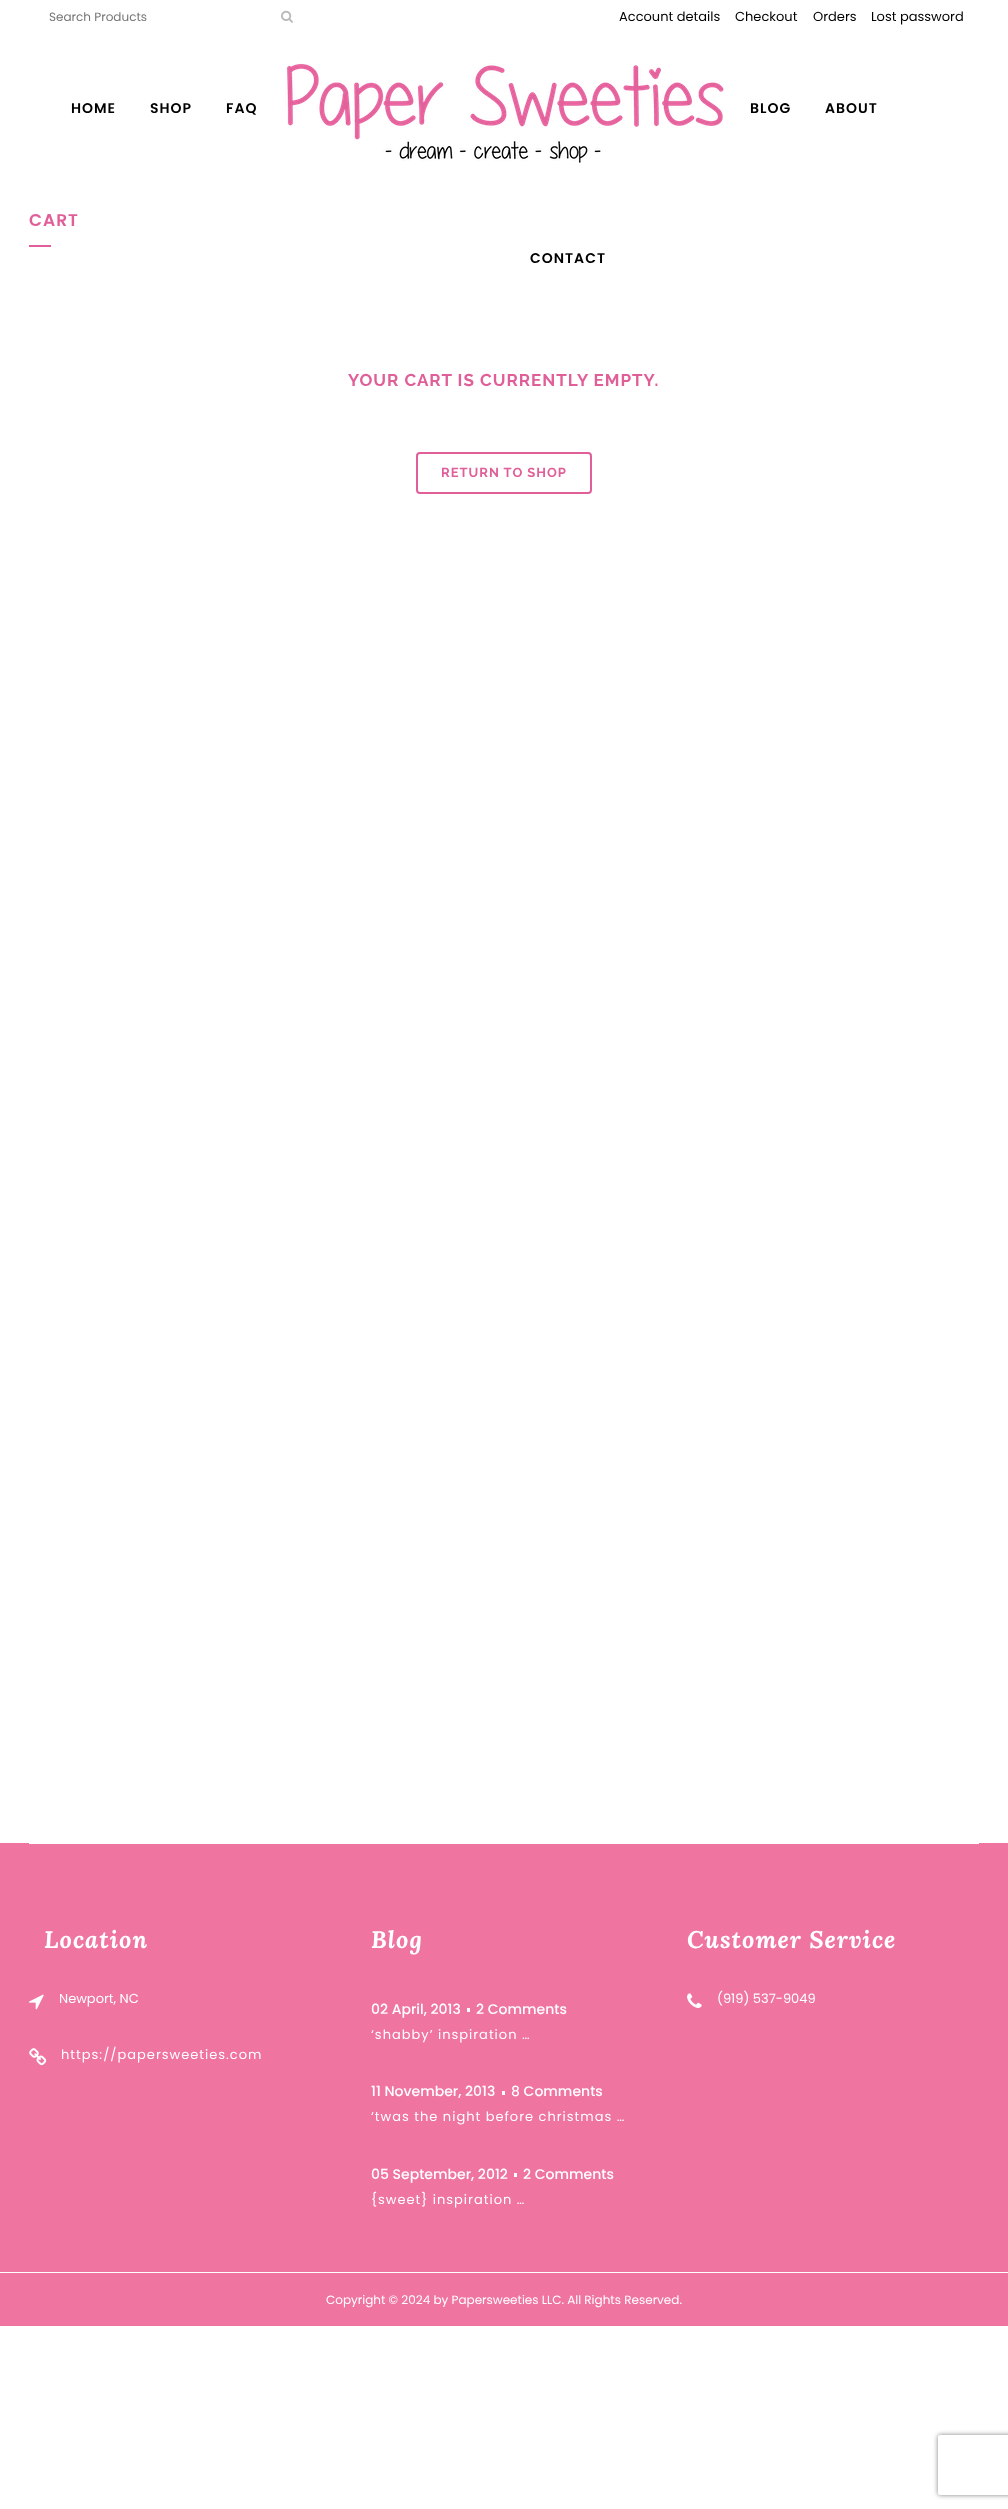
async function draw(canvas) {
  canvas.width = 1008;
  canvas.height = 2509;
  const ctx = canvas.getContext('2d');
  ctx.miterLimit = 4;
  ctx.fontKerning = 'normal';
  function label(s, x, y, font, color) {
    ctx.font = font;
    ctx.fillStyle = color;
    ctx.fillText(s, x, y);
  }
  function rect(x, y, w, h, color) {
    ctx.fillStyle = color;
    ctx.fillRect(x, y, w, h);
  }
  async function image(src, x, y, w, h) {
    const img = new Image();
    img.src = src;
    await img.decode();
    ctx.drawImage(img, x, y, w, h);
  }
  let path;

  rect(0, 0, 1008, 2509, '#fff');
  label('Search Products', 49, 21, '12px Poppins', '#757575');
  await image('assets/img1.png', 281, 10, 12, 13);
  label('Account details', 619, 21, '13px Poppins', '#000');
  label('Checkout', 735, 21, '13px Poppins', '#000');
  label('Orders', 813, 21, '13px Poppins', '#000');
  label('Lost password', 871, 21, '13px Poppins', '#000');
  ctx.letterSpacing = '1px';
  label('HOME', 71, 113, '600 14px Poppins', '#000');
  label('SHOP', 150, 113, '600 14px Poppins', '#000');
  label('FAQ', 226, 113, '600 14px Poppins', '#000');
  await image('assets/img2.png', 285, 63, 439, 100);
  label('BLOG', 750, 113, '600 14px Poppins', '#000');
  label('ABOUT', 825, 113, '600 14px Poppins', '#000');
  label('CONTACT', 530, 263, '600 14px Poppins', '#000');
  label('CART', 29, 226, '600 17px Poppins', '#e05f98');
  rect(29, 245, 22, 2, '#e05f98');
  label('YOUR CART IS CURRENTLY EMPTY.', 348, 386, 'bold 17px Raleway', '#e05f98');
  ctx.beginPath();
  ctx.roundRect(417, 453, 174, 40, 3);
  ctx.strokeStyle = '#e05f98';
  ctx.lineWidth = 2;
  ctx.stroke();
  label('RETURN TO SHOP', 441, 477, 'bold 13px Raleway', '#e05f98');
  rect(0, 1843, 1008, 429, '#ef74a0');
  rect(29, 1843, 950, 1, '#fff');
  label('Location', 44, 1948, 'italic bold 24px Lora', '#fff');
  await image('assets/img3.png', 29, 1994, 15, 16);
  ctx.letterSpacing = '0px';
  label('Newport, NC', 59, 2003, '13px Poppins', '#fff');
  await image('assets/img4.png', 29, 2048, 18, 18);
  ctx.letterSpacing = '1px';
  label('https://papersweeties.com', 61, 2059, '13px Poppins', '#fff');
  label('Blog', 371, 1948, 'italic bold 24px Lora', '#fff');
  ctx.letterSpacing = '0px';
  label('02 April, 2013', 371, 2014, '500 14px Poppins', '#fff');
  rect(467, 2008, 3, 4, '#fff');
  label('2 Comments', 476, 2014, '500 14px Poppins', '#fff');
  ctx.letterSpacing = '1px';
  label('‘shabby’ inspiration …', 371, 2039, '13px Poppins', '#fff');
  ctx.letterSpacing = '0px';
  label('11 November, 2013', 371, 2096, '500 14px Poppins', '#fff');
  rect(502, 2091, 3, 4, '#fff');
  label('8 Comments', 511, 2096, '500 14px Poppins', '#fff');
  ctx.letterSpacing = '1px';
  label('‘twas the night before christmas …', 371, 2121, '13px Poppins', '#fff');
  ctx.letterSpacing = '0px';
  label('05 September, 2012', 371, 2179, '500 14px Poppins', '#fff');
  rect(514, 2173, 3, 4, '#fff');
  label('2 Comments', 523, 2179, '500 14px Poppins', '#fff');
  ctx.letterSpacing = '1px';
  label('{sweet} inspiration …', 371, 2204, '13px Poppins', '#fff');
  label('Customer Service', 687, 1948, 'italic bold 24px Lora', '#fff');
  await image('assets/img5.png', 687, 1993, 15, 15);
  ctx.letterSpacing = '0px';
  label('(919) 537-9049', 717, 2003, '13px Poppins', '#fff');
  rect(0, 2273, 1008, 53, '#ef74a0');
  label('Copyright © 2024 by Papersweeties LLC. All Rights Reserved.', 326, 2304, '12px Poppins', '#fff');
  ctx.save();
  path = new Path2D('M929 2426H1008V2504H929ZM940 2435H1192C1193 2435 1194 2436 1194 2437V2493C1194 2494 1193 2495 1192 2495H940C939 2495 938 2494 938 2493V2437C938 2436 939 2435 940 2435Z');
  ctx.clip(path, 'evenodd');
  ctx.fillStyle = '#808080';
  ctx.filter = 'blur(2.5px)';
  ctx.beginPath();
  ctx.roundRect(938, 2435, 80, 60, 2);
  ctx.fill();
  ctx.filter = 'none';
  ctx.restore();
}

draw(document.querySelector('canvas'));
